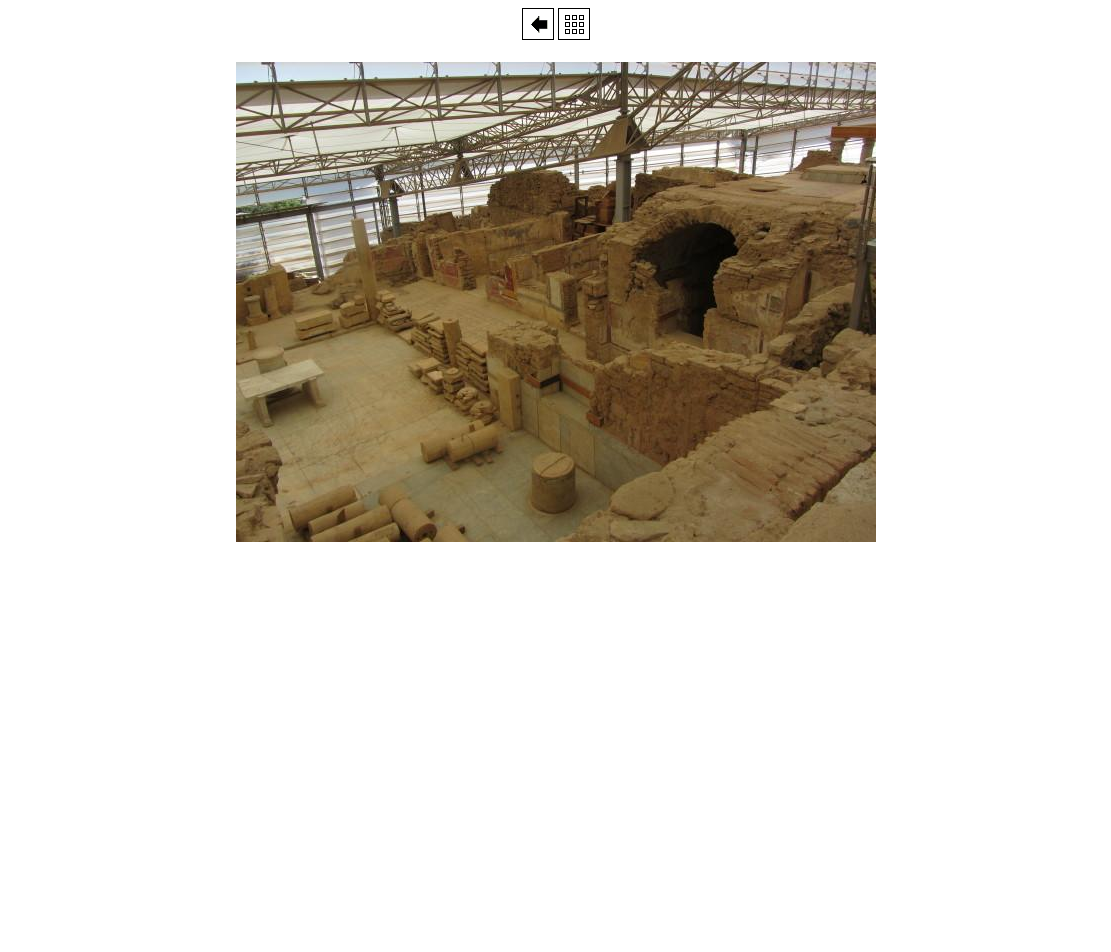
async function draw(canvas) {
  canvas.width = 1111;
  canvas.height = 952;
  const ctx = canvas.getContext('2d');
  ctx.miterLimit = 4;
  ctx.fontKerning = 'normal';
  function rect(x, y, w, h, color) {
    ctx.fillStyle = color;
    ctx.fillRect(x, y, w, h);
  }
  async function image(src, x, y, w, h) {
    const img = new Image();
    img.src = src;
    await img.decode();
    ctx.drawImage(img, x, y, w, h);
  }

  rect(0, 0, 1111, 952, '#fff');
  await image('assets/img1.png', 522, 8, 32, 32);
  await image('assets/img2.png', 558, 8, 32, 32);
  await image('assets/img3.png', 236, 62, 640, 480);
}

draw(document.querySelector('canvas'));
